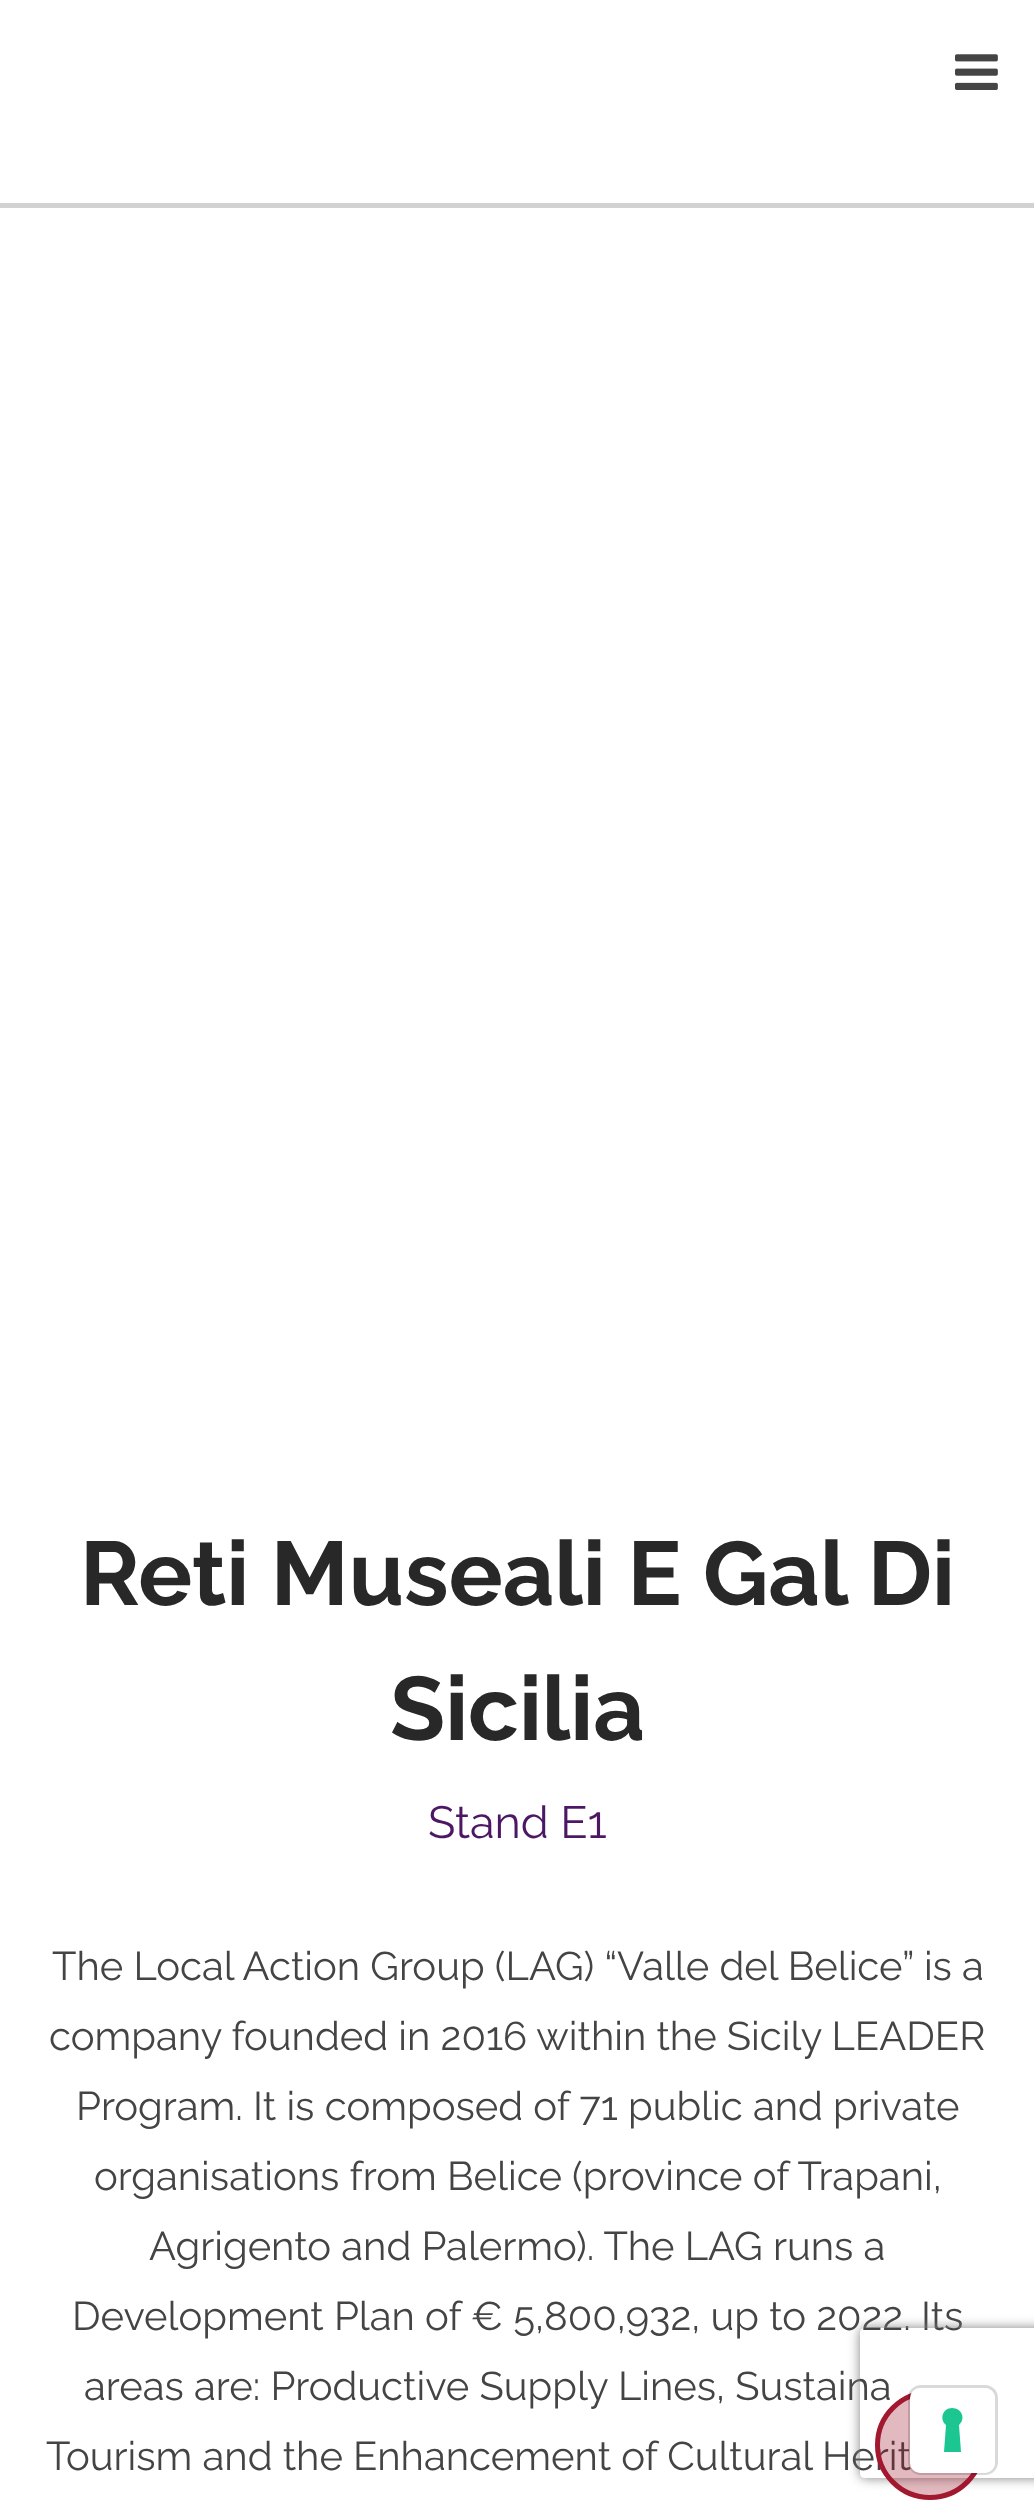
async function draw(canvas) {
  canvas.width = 1034;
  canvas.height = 2511;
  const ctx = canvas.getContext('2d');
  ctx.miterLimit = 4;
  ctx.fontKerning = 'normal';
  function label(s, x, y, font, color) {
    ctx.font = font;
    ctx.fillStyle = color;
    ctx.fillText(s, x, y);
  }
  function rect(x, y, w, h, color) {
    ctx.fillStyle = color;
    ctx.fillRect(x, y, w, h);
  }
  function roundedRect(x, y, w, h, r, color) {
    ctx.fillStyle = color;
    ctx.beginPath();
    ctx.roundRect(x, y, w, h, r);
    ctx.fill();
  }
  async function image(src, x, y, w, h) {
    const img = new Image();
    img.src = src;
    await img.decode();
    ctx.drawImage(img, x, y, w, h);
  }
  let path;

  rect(0, 0, 1034, 2511, '#fff');
  rect(0, 203, 1034, 5, '#d1d1d1');
  await image('assets/img1.png', 955, 54, 43, 36);
  label('Reti Museali E Gal Di', 80, 1605, 'bold 90px Raleway', '#282828');
  label('Sicilia', 390, 1740, 'bold 90px Raleway', '#282828');
  label('Stand E1', 428, 1838, '45px Raleway', '#4c1864');
  label('The Local Action Group (LAG) “Valle del Belice” is a', 52, 1980, '40px Raleway', '#444');
  label('company founded in 2016 within the Sicily LEADER', 49, 2050, '40px Raleway', '#444');
  label('Program. It is composed of 71 public and private', 76, 2120, '40px Raleway', '#444');
  label('organisations from Belice (province of Trapani,', 94, 2190, '40px Raleway', '#444');
  label('Agrigento and Palermo). The LAG runs a', 149, 2260, '40px Raleway', '#444');
  label('Development Plan of € 5,800,932, up to 2022. Its', 72, 2330, '40px Raleway', '#444');
  label('areas are: Productive Supply Lines, Sustaina', 84, 2400, '40px Raleway', '#444');
  label('Tourism and the Enhancement of Cultural Herit', 46, 2470, '40px Raleway', '#444');
  ctx.save();
  path = new Path2D('M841 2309H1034V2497H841ZM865 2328H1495C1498 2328 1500 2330 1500 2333V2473C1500 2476 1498 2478 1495 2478H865C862 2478 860 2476 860 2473V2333C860 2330 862 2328 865 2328Z');
  ctx.clip(path, 'evenodd');
  ctx.fillStyle = '#808080';
  ctx.filter = 'blur(6px)';
  ctx.beginPath();
  ctx.roundRect(860, 2328, 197, 150, 5);
  ctx.fill();
  ctx.filter = 'none';
  ctx.restore();
  ctx.fillStyle = '#a1182f4d';
  ctx.beginPath();
  ctx.arc(930, 2445, 52.5, 0, 2 * Math.PI);
  ctx.fill();
  ctx.strokeStyle = '#a1182f';
  ctx.lineWidth = 5;
  ctx.stroke();
  ctx.beginPath();
  ctx.roundRect(909.5, 2386.5, 87, 87, 11.5);
  ctx.strokeStyle = '#00000026';
  ctx.lineWidth = 3;
  ctx.stroke();
  roundedRect(910, 2388, 85, 85, 10, '#fff');
  ctx.fillStyle = '#1cc691';
  path = new Path2D('M952 2408C962 2408 966 2419 959 2425L961 2452H944L946 2425C939 2419 943 2408 952 2408Z');
  ctx.fill(path, 'evenodd');
}

draw(document.querySelector('canvas'));
